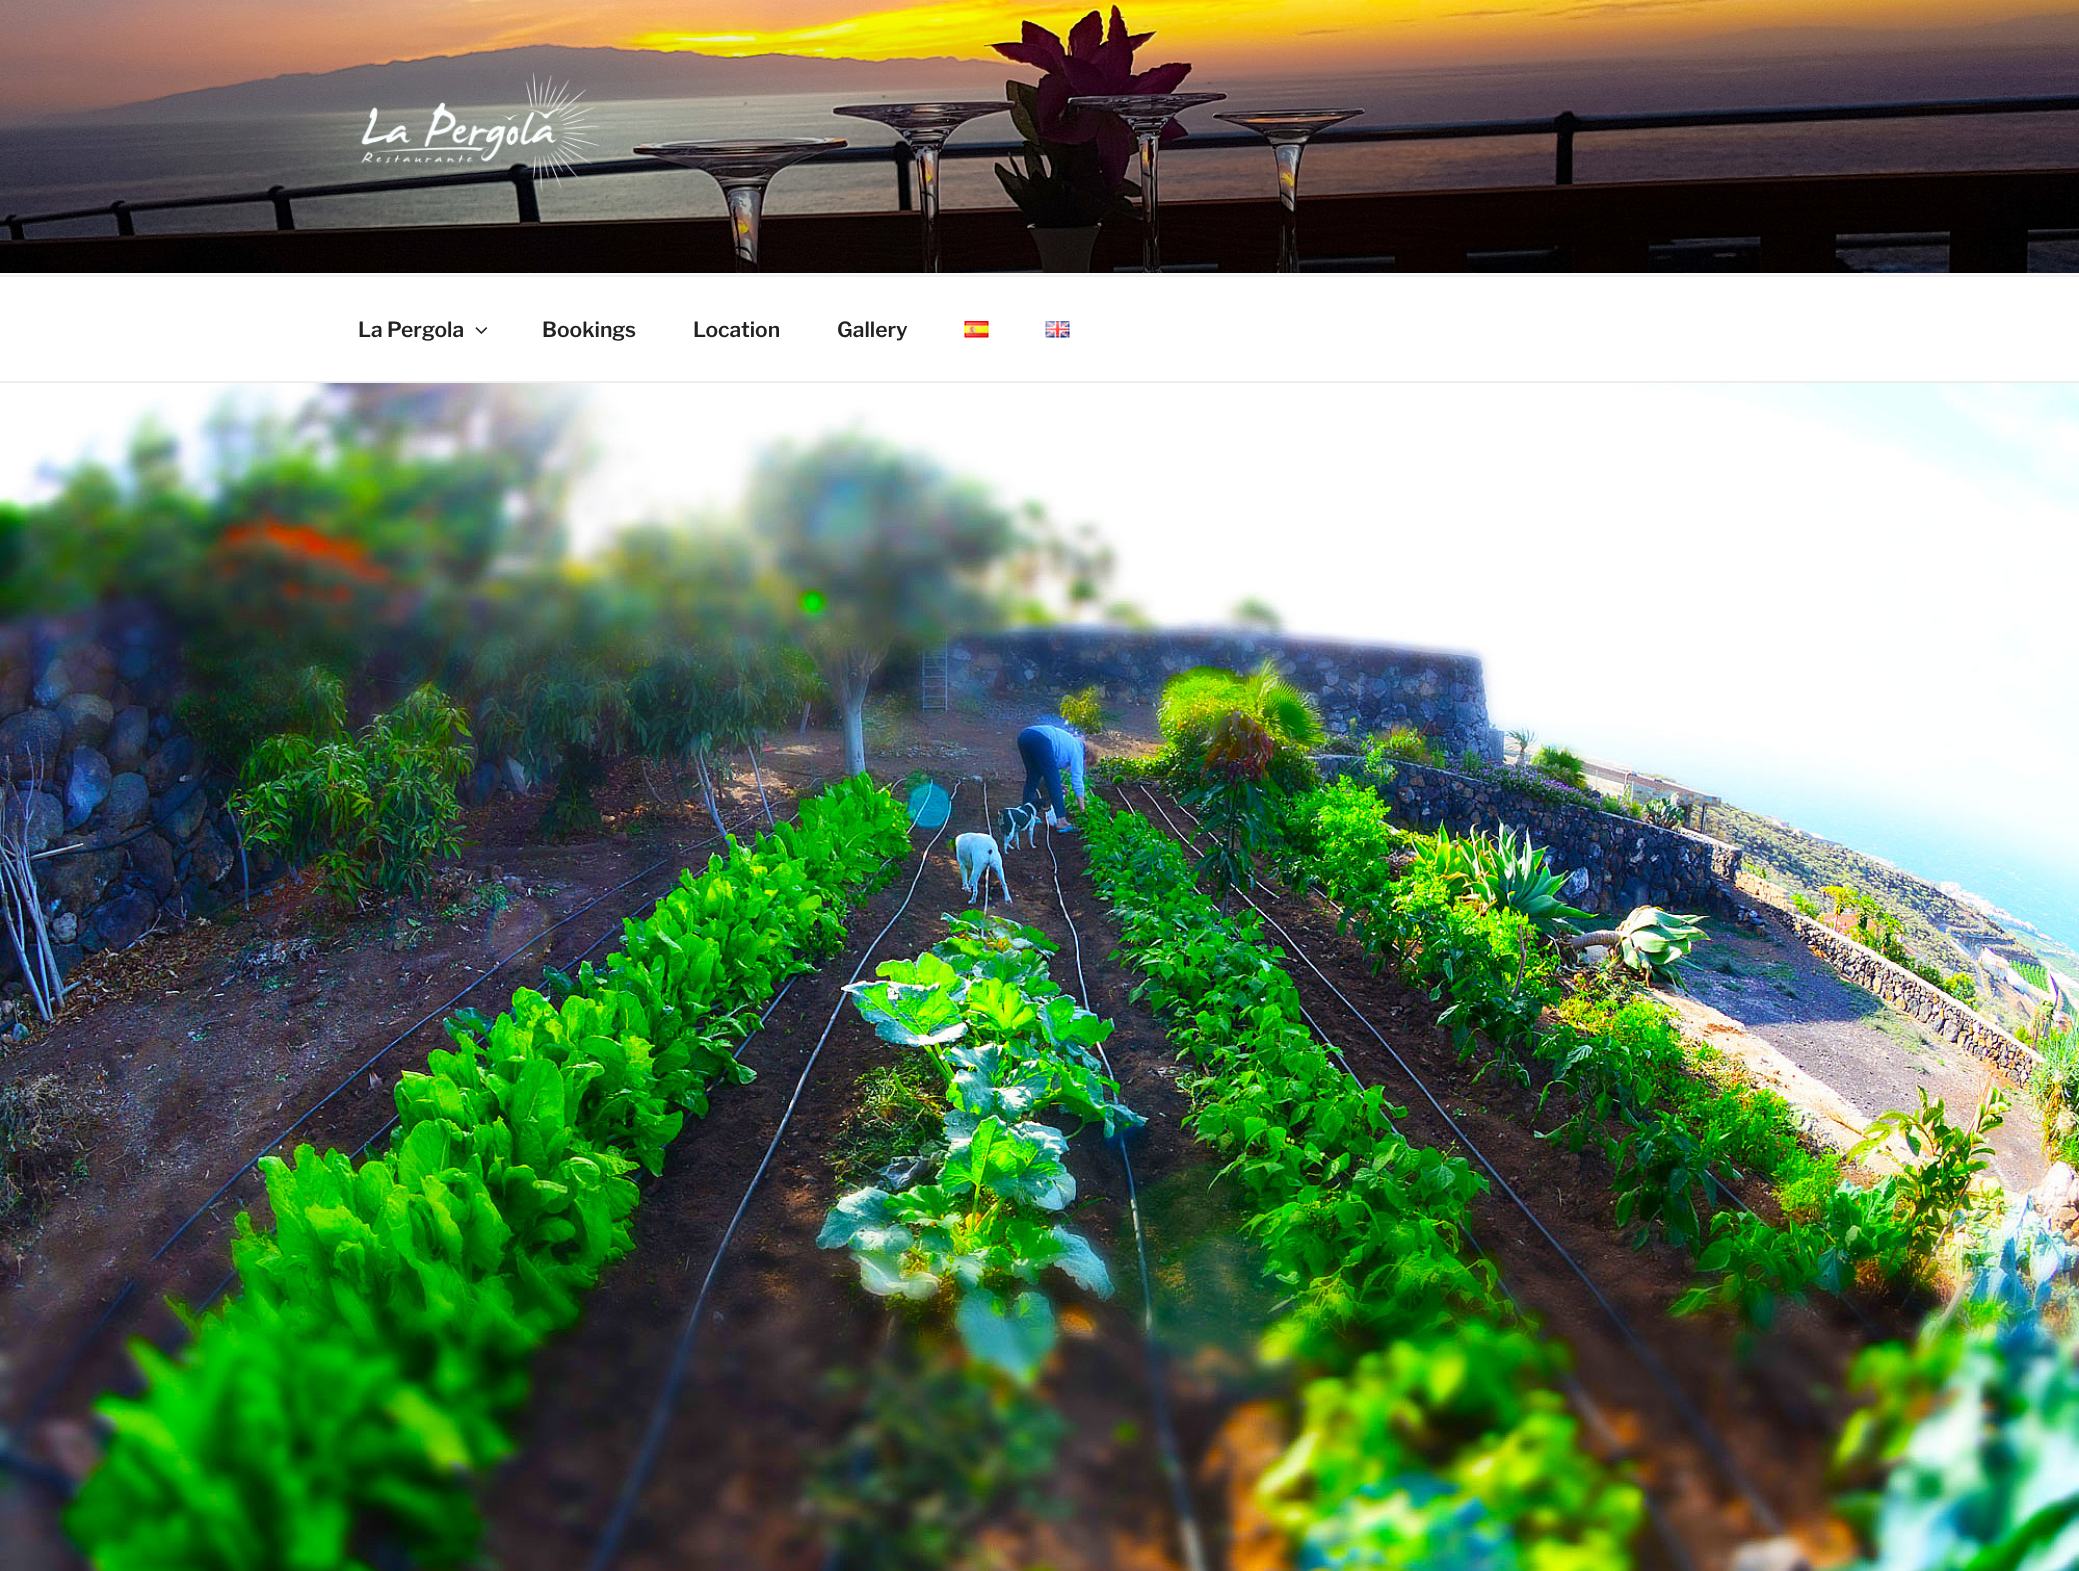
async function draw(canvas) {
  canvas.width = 2079;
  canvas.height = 1571;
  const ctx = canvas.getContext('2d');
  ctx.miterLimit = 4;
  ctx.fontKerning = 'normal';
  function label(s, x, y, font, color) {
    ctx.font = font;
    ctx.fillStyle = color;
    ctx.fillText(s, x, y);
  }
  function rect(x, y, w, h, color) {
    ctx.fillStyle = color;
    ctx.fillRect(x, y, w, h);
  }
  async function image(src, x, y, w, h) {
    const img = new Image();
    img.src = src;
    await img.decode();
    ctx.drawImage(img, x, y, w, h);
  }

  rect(0, 0, 2079, 1571, '#fff');
  rect(0, 273, 2079, 2, '#fafafa');
  await image('assets/img1.png', 0, 0, 2079, 273);
  await image('assets/img2.png', 361, 72, 239, 120);
  rect(0, 275, 2079, 2, '#eee');
  rect(0, 381, 2079, 2, '#eee');
  label('La Pergola', 358, 337, '600 21px Libre Franklin', '#222');
  await image('assets/img3.png', 475, 327, 13, 7);
  label('Bookings', 542, 337, '600 21px Libre Franklin', '#222');
  label('Location', 693, 337, '600 21px Libre Franklin', '#222');
  label('Gallery', 837, 337, '600 21px Libre Franklin', '#222');
  await image('assets/img4.png', 964, 321, 25, 17);
  await image('assets/img5.png', 1045, 321, 25, 17);
  await image('assets/img6.png', 0, 383, 2079, 1188);
}

draw(document.querySelector('canvas'));
